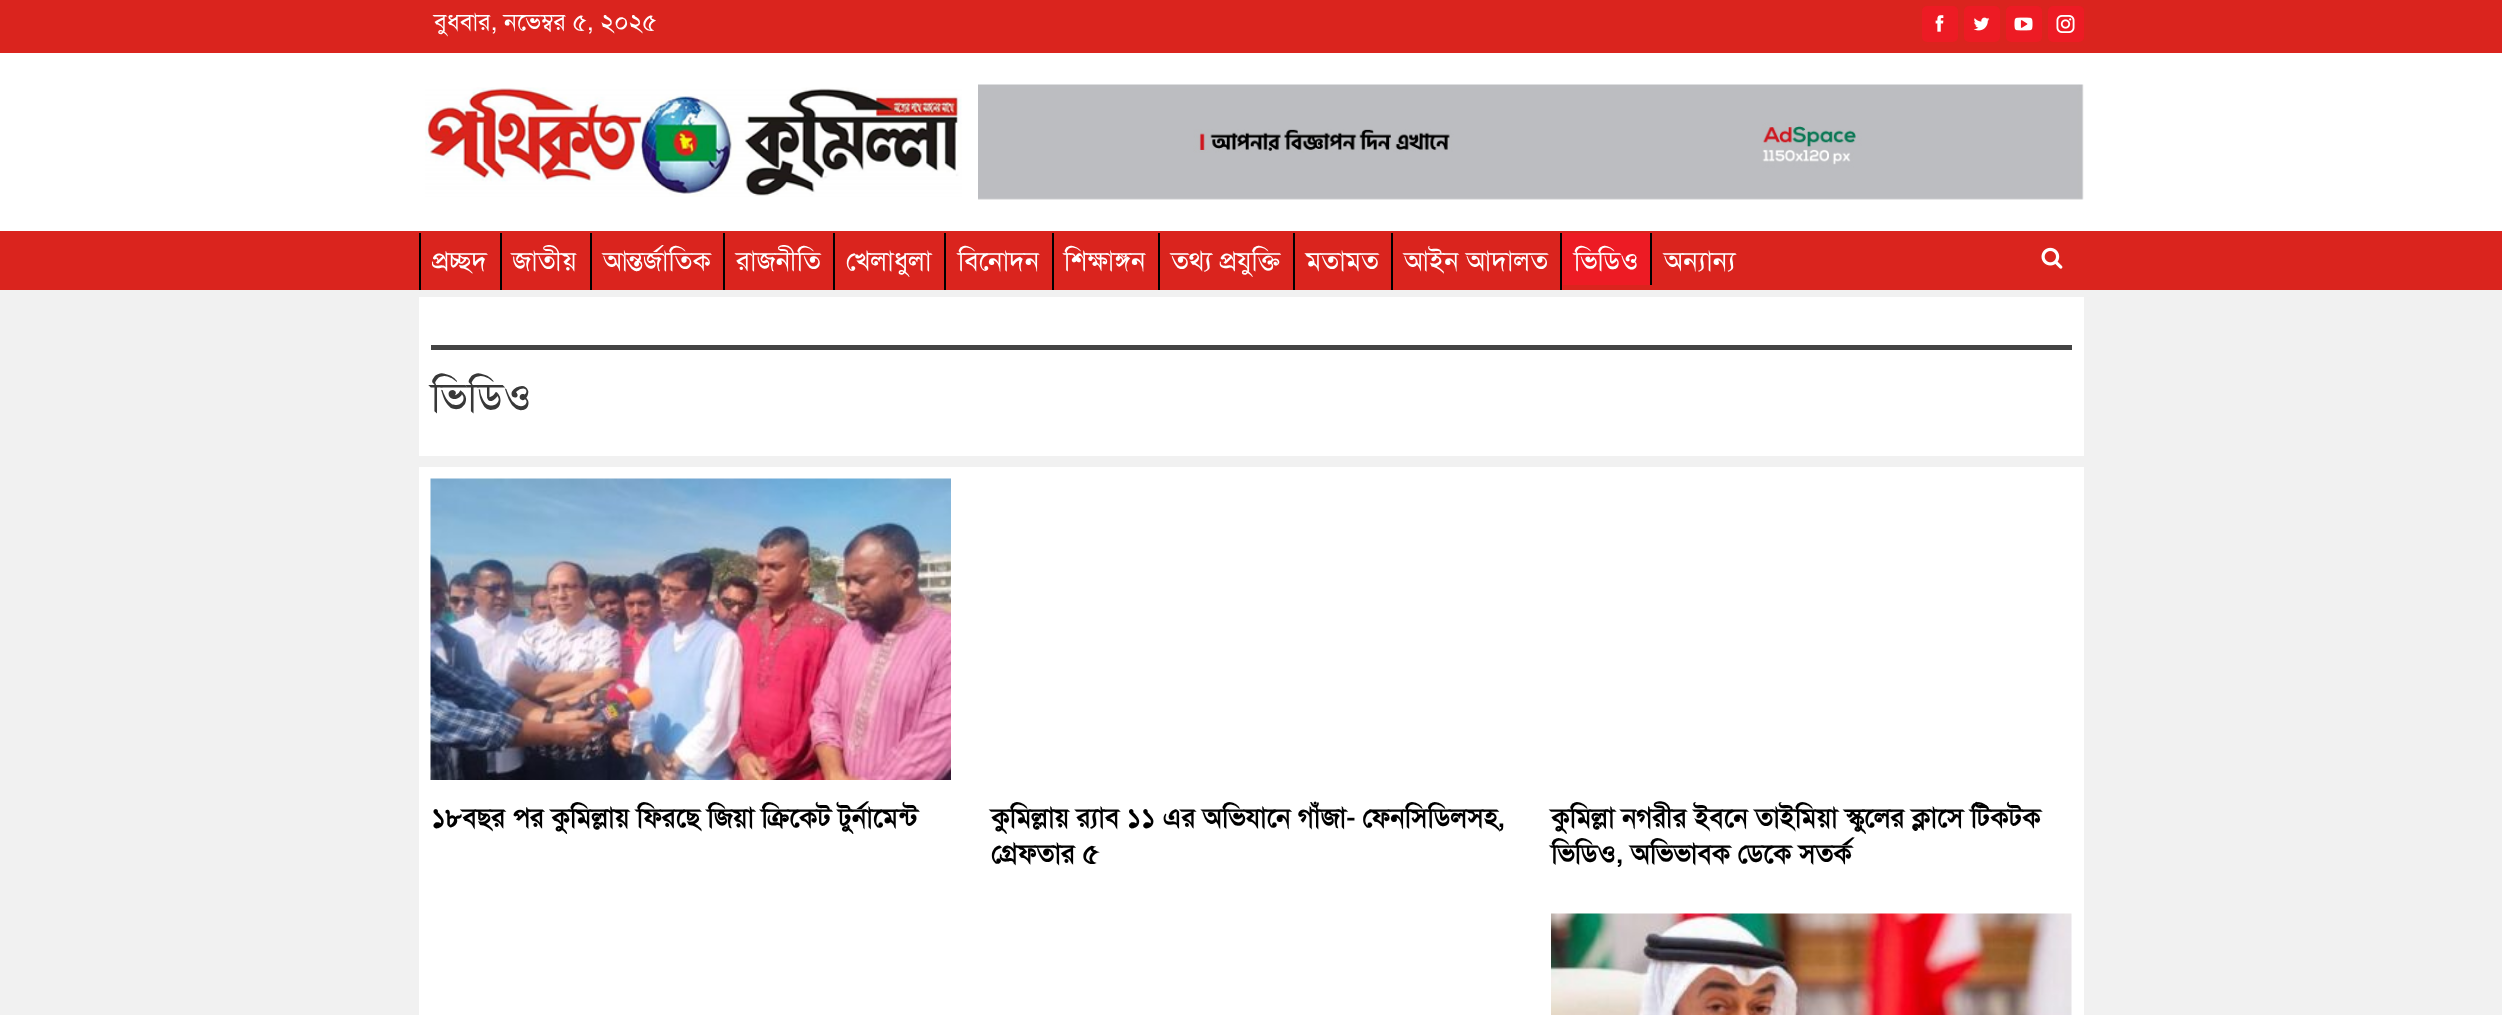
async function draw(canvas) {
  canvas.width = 2502;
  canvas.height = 1015;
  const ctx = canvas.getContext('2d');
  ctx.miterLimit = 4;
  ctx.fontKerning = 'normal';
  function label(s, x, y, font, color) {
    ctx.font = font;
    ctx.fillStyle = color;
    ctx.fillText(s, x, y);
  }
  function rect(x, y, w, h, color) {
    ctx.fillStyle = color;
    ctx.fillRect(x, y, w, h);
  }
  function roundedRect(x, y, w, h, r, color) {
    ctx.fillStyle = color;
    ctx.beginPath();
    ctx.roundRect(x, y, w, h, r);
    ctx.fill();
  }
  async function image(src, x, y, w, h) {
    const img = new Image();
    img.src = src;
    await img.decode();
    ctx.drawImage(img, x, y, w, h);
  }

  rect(0, 0, 2502, 1015, '#f1f1f1');
  rect(0, 53, 2502, 178, '#fff');
  rect(0, 0, 2502, 53, '#da241e');
  label('বুধবার, নভেম্বর ৫, ২০২৫', 434, 30, '24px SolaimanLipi', '#fff');
  roundedRect(1922, 6, 36, 36, 5, '#ed1b24');
  await image('assets/img1.png', 1935, 15, 9, 17);
  roundedRect(1964, 6, 36, 36, 5, '#ed1b24');
  await image('assets/img2.png', 1973, 17, 17, 14);
  roundedRect(2006, 6, 36, 36, 5, '#ed1b24');
  await image('assets/img3.png', 2014, 17, 19, 14);
  roundedRect(2048, 6, 36, 36, 5, '#ed1b24');
  await image('assets/img4.png', 2056, 15, 19, 18);
  await image('assets/img5.png', 425, 87, 537, 110);
  await image('assets/img6.png', 978, 84, 1106, 116);
  rect(0, 231, 2502, 59, '#da241e');
  rect(419, 233, 2, 57, '#000');
  label('প্রচ্ছদ', 432, 270, '27px SolaimanLipi', '#fff');
  rect(500, 233, 2, 57, '#000');
  label('জাতীয়', 512, 270, '27px SolaimanLipi', '#fff');
  rect(590, 233, 2, 57, '#000');
  label('আন্তর্জাতিক', 603, 270, '27px SolaimanLipi', '#fff');
  rect(723, 233, 2, 57, '#000');
  label('রাজনীতি', 736, 270, '27px SolaimanLipi', '#fff');
  rect(833, 233, 2, 57, '#000');
  label('খেলাধুলা', 846, 270, '27px SolaimanLipi', '#fff');
  rect(944, 233, 2, 57, '#000');
  label('বিনোদন', 958, 270, '27px SolaimanLipi', '#fff');
  rect(1052, 233, 2, 57, '#000');
  label('শিক্ষাঙ্গন', 1064, 270, '27px SolaimanLipi', '#fff');
  rect(1158, 233, 2, 57, '#000');
  label('তথ্য প্রযুক্তি', 1171, 270, '27px SolaimanLipi', '#fff');
  rect(1293, 233, 2, 57, '#000');
  label('মতামত', 1306, 270, '27px SolaimanLipi', '#fff');
  rect(1391, 233, 2, 57, '#000');
  label('আইন আদালত', 1404, 270, '27px SolaimanLipi', '#fff');
  rect(1560, 233, 2, 57, '#000');
  rect(1562, 233, 88, 57, '#ed1b24');
  label('ভিডিও', 1574, 270, '27px SolaimanLipi', '#fff');
  rect(1650, 233, 2, 57, '#000');
  rect(1563, 285, 89, 5, '#da241e');
  label('অন্যান্য', 1664, 270, '27px SolaimanLipi', '#fff');
  await image('assets/img7.png', 2041, 247, 22, 22);
  rect(419, 297, 1665, 159, '#fff');
  rect(431, 345, 1641, 5, '#444');
  label('ভিডিও', 431, 411, '42px SolaimanLipi', '#383838');
  rect(419, 467, 1665, 548, '#fff');
  await image('assets/img8.png', 430, 478, 521, 302);
  label('১৮বছর পর কুমিল্লায় ফিরছে জিয়া ক্রিকেট টুর্নামেন্ট', 431, 827, 'bold 27px SolaimanLipi', '#000');
  label('কু‌মিল্লায় র‍্যাব ১১ এর অ‌ভিযা‌নে গাঁজা- ফেন‌সি‌ডিলসহ,', 991, 827, 'bold 27px SolaimanLipi', '#000');
  label('গ্রেফতার ৫', 991, 863, 'bold 27px SolaimanLipi', '#000');
  label('কুমিল্লা নগরীর ইবনে তাইমিয়া স্কুলের ক্লাসে টিকটক', 1551, 827, 'bold 27px SolaimanLipi', '#000');
  label('ভিডিও, অভিভাবক ডেকে সতর্ক', 1551, 863, 'bold 27px SolaimanLipi', '#000');
  await image('assets/img9.png', 1551, 913, 521, 102);
}

draw(document.querySelector('canvas'));
